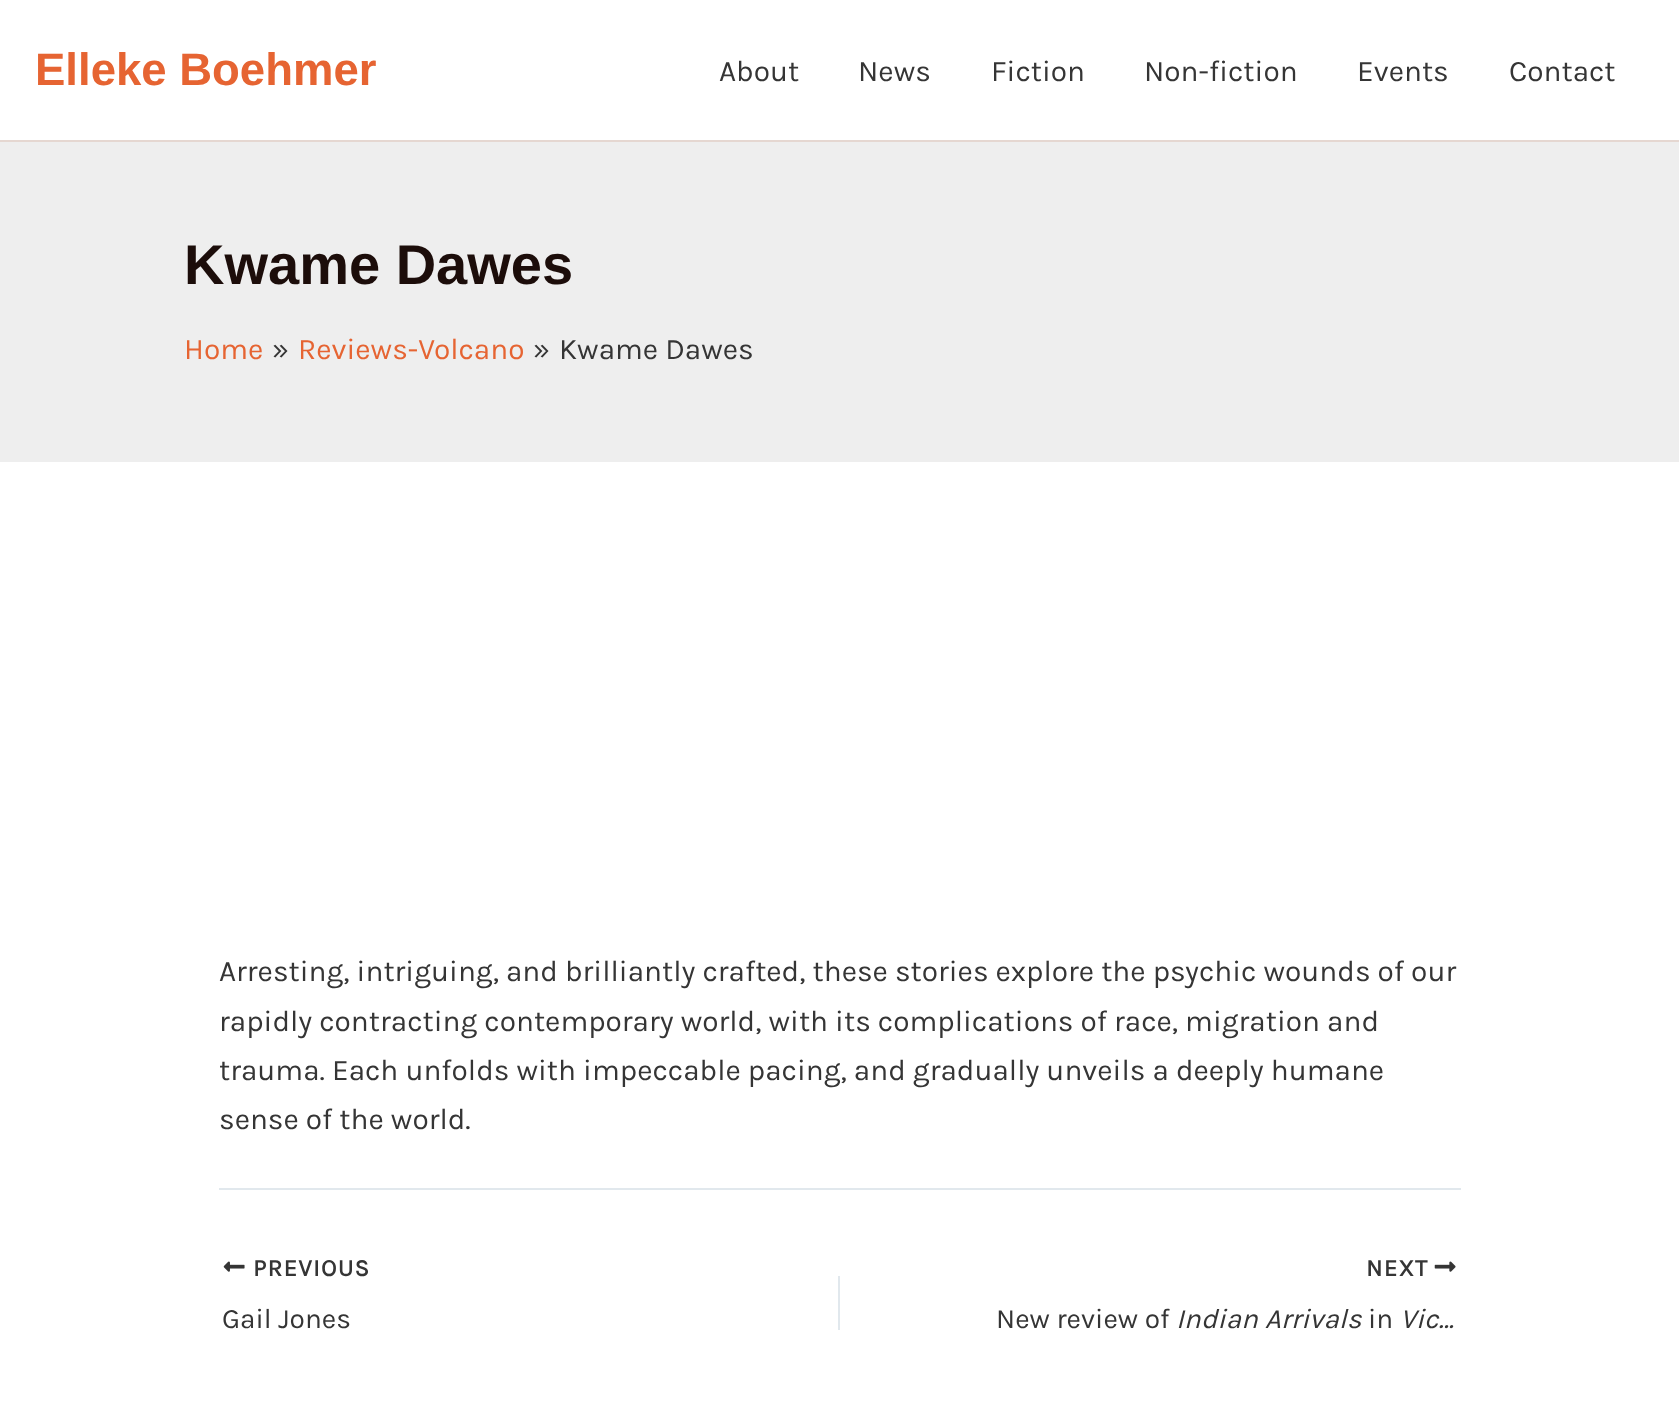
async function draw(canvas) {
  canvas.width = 1679;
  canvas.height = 1408;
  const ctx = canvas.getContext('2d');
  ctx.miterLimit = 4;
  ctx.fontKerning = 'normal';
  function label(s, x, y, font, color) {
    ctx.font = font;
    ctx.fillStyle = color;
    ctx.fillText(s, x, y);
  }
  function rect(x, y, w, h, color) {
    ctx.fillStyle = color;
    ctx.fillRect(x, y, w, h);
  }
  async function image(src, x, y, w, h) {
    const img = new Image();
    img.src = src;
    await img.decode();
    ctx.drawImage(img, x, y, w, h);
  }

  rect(0, 0, 1679, 1408, '#fff');
  rect(0, 140, 1679, 2, '#e5d7d1');
  label('Elleke Boehmer', 35, 85, 'bold 45.5px Liberation Sans', '#e66432');
  label('About', 719, 81, '29.75px Karla', '#353535');
  label('News', 858, 81, '29.75px Karla', '#353535');
  label('Fiction', 991, 81, '29.75px Karla', '#353535');
  label('Non-fiction', 1144, 81, '29.75px Karla', '#353535');
  label('Events', 1357, 81, '29.75px Karla', '#353535');
  label('Contact', 1509, 81, '29.75px Karla', '#353535');
  rect(0, 142, 1679, 320, '#eee');
  label('Kwame Dawes', 184, 284, 'bold 56px Liberation Sans', '#1c0d0a');
  label('Home', 184, 359, '29.75px Karla', '#e66432');
  label('»', 272, 359, '29.75px Karla', '#353535');
  label('Reviews-Volcano', 298, 359, '29.75px Karla', '#e66432');
  label('»', 533, 359, '29.75px Karla', '#353535');
  label('Kwame Dawes', 559, 359, '29.75px Karla', '#353535');
  label('Arresting, intriguing, and brilliantly crafted, these stories explore the psychic wounds of our', 219, 981, '29.75px Karla', '#353535');
  label('rapidly contracting contemporary world, with its complications of race, migration and', 219, 1031, '29.75px Karla', '#353535');
  label('trauma. Each unfolds with impeccable pacing, and gradually unveils a deeply humane', 219, 1080, '29.75px Karla', '#353535');
  label('sense of the world.', 219, 1129, '29.75px Karla', '#353535');
  rect(219, 1188, 1242, 2, '#e1e8ed');
  await image('assets/img1.png', 223, 1261, 22, 11);
  ctx.letterSpacing = '1.25px';
  label('PREVIOUS', 253, 1276, 'bold 24px Karla', '#353535');
  ctx.letterSpacing = '0px';
  label('Gail Jones', 222, 1328, '28px Karla', '#353535');
  rect(838, 1276, 2, 54, '#e1e8ed');
  ctx.letterSpacing = '1.25px';
  label('NEXT', 1366, 1276, 'bold 24px Karla', '#353535');
  await image('assets/img2.png', 1434, 1261, 22, 11);
  ctx.letterSpacing = '0px';
  label('New review of', 996, 1328, '28px Karla', '#353535');
  label('Indian Arrivals', 1176, 1328, 'italic 28px Karla', '#353535');
  label('in', 1368, 1328, '28px Karla', '#353535');
  label('Vic…', 1400, 1328, 'italic 28px Karla', '#353535');
}

draw(document.querySelector('canvas'));
